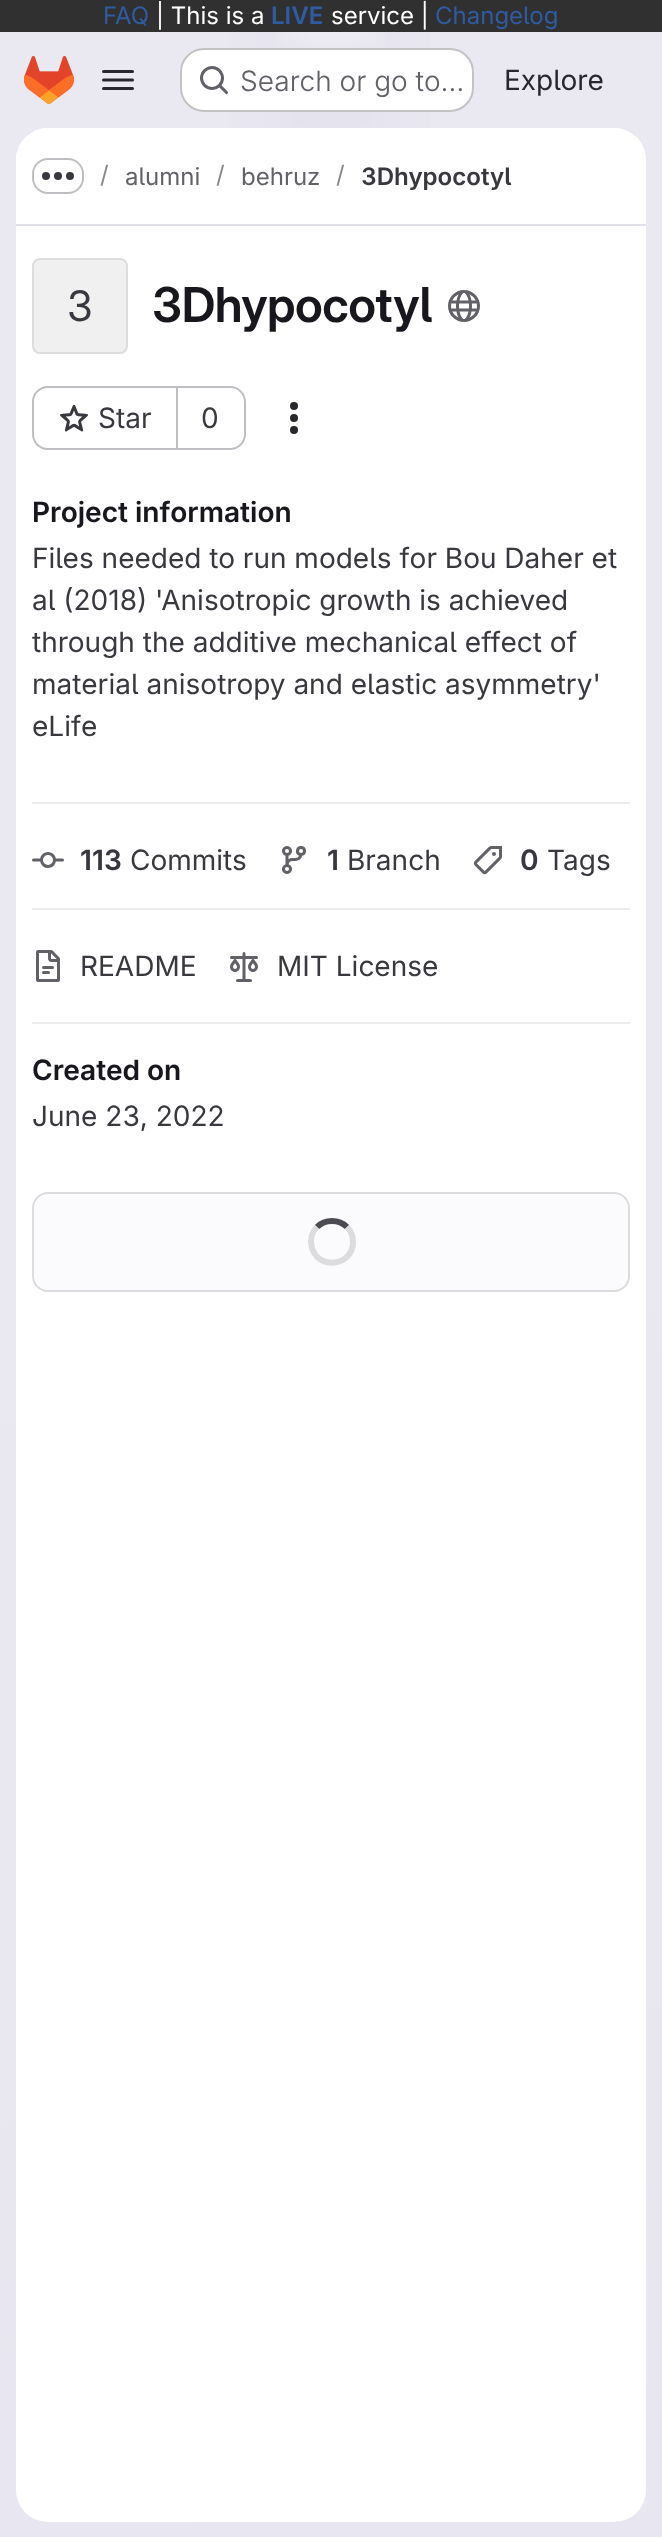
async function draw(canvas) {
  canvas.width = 662;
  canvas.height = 2537;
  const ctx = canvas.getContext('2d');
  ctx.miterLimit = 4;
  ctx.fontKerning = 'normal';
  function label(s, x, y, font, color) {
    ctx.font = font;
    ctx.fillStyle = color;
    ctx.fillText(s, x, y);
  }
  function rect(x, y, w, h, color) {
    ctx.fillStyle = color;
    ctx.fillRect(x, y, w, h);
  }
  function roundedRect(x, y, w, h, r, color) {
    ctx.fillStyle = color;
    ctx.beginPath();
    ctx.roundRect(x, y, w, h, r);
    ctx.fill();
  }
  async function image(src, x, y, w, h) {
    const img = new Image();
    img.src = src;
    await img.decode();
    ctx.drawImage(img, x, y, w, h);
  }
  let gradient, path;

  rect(0, 0, 662, 2537, '#fff');
  gradient = ctx.createLinearGradient(558, 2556, 104, -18);
  gradient.addColorStop(0, '#e8e6f0');
  gradient.addColorStop(0.7, '#eae9f2');
  ctx.fillStyle = gradient;
  ctx.fillRect(0, 32, 662, 2505);
  gradient = ctx.createRadialGradient(331, 0, 0, 331, 0, 331);
  gradient.addColorStop(0, '#e4e2ed');
  gradient.addColorStop(0.42, '#e4e2ed00');
  ctx.fillStyle = gradient;
  ctx.beginPath();
  ctx.rect(231, 32, 200, 96);
  ctx.save();
  ctx.clip();
  ctx.scale(1, 2538 / 331);
  ctx.fillRect(0, 0, 662, 331);
  ctx.restore();
  gradient = ctx.createRadialGradient(331, 0, 0, 331, 0, 331);
  gradient.addColorStop(0, '#e4e2ec');
  gradient.addColorStop(0.3, '#e4e2ec00');
  ctx.fillStyle = gradient;
  ctx.beginPath();
  ctx.rect(291, 39, 80, 87);
  ctx.save();
  ctx.clip();
  ctx.scale(1, 2538 / 331);
  ctx.fillRect(0, 0, 662, 331);
  ctx.restore();
  gradient = ctx.createRadialGradient(331, 0, 0, 331, 0, 2559);
  gradient.addColorStop(0, '#ffffff99');
  gradient.addColorStop(0.03, '#ffffff00');
  ctx.fillStyle = gradient;
  ctx.fillRect(276, 32, 110, 16);
  rect(0, 0, 662, 32, '#303030');
  label('FAQ', 103, 24, '24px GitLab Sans', '#2f5ca0');
  label('| This is a', 156, 24, '24px GitLab Sans', '#fff');
  label('LIVE', 271, 24, '600 24px "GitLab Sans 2"', '#2f5ca0');
  label('service |', 331, 24, '24px GitLab Sans', '#fff');
  label('Changelog', 435, 24, '24px GitLab Sans', '#2f5ca0');
  await image('assets/img1.png', 24, 56, 50, 48);
  await image('assets/img2.png', 102, 70, 32, 20);
  roundedRect(180, 48, 294, 64, 24, '#fff');
  ctx.beginPath();
  ctx.roundRect(181, 49, 292, 62, 23);
  ctx.strokeStyle = '#0505063d';
  ctx.lineWidth = 2;
  ctx.stroke();
  await image('assets/img3.png', 200, 66, 29, 29);
  label('Search or go to…', 240, 91, '300 28px GitLab Sans', '#626168');
  label('Explore', 504, 90, '28px GitLab Sans', '#28272d');
  roundedRect(16, 128, 630, 2394, 32, '#fff');
  ctx.beginPath();
  ctx.roundRect(16, 128, 630, 98, [32, 32, 0, 0]);
  ctx.fill();
  rect(16, 224, 630, 2, '#e1dfec');
  ctx.beginPath();
  ctx.roundRect(33, 159, 50, 34, 15);
  ctx.strokeStyle = '#bfbfc3';
  ctx.stroke();
  await image('assets/img4.png', 42, 172, 32, 8);
  label('/', 100, 183, '24px GitLab Sans', '#89888d');
  label('alumni', 125, 185, '24px GitLab Sans', '#626168');
  label('/', 216, 183, '24px GitLab Sans', '#89888d');
  label('behruz', 241, 185, '24px GitLab Sans', '#626168');
  label('/', 336, 183, '24px GitLab Sans', '#89888d');
  label('3Dhypocotyl', 361, 185, '600 24px "GitLab Sans 2"', '#3a383f');
  roundedRect(32, 258, 96, 96, 8, '#f0f0f1');
  ctx.beginPath();
  ctx.roundRect(33, 259, 94, 94, 7);
  ctx.strokeStyle = '#05050614';
  ctx.stroke();
  label('3', 67, 321, '42px "GitLab Sans 2"', '#3a383f');
  ctx.letterSpacing = '-0.5px';
  label('3Dhypocotyl', 152, 322, '600 48px GitLab Sans', '#18171d');
  await image('assets/img5.png', 448, 290, 32, 32);
  ctx.fillStyle = '#bfbfc3';
  path = new Path2D('M48 386H176V450H48C39 450 32 443 32 434V402C32 393 39 386 48 386ZM48 388H176V448H48C40 448 34 442 34 434V402C34 394 40 388 48 388Z');
  ctx.fill(path, 'evenodd');
  await image('assets/img6.png', 60, 404, 28, 28);
  ctx.letterSpacing = '0px';
  label('Star', 98, 428, '28px GitLab Sans', '#3a383f');
  ctx.fillStyle = '#bfbfc3';
  path = new Path2D('M178 386H230C239 386 246 393 246 402V434C246 443 239 450 230 450H178ZM178 388H230C238 388 244 394 244 402V434C244 442 238 448 230 448H178Z');
  ctx.fill(path, 'evenodd');
  rect(176, 386, 2, 64, '#bfbfc3');
  label('0', 201, 428, '28px GitLab Sans', '#3a383f');
  await image('assets/img7.png', 290, 402, 8, 32);
  rect(32, 802, 598, 2, '#ececef');
  label('Project information', 32, 522, '600 28px "GitLab Sans 2"', '#18171d');
  label('Files needed to run models for Bou Daher et', 32, 568, '28px GitLab Sans', '#3a383f');
  label('al (2018) \'Anisotropic growth is achieved', 32, 610, '28px GitLab Sans', '#3a383f');
  label('through the additive mechanical effect of', 32, 652, '28px GitLab Sans', '#3a383f');
  label('material anisotropy and elastic asymmetry\'', 32, 694, '28px GitLab Sans', '#3a383f');
  label('eLife', 32, 736, '28px GitLab Sans', '#3a383f');
  rect(32, 908, 598, 2, '#ececef');
  await image('assets/img8.png', 32, 852, 32, 16);
  label('113', 80, 870, '600 28px "GitLab Sans 2"', '#3a383f');
  label('Commits', 130, 870, '28px GitLab Sans', '#3a383f');
  await image('assets/img9.png', 282, 846, 24, 28);
  label('1', 327, 870, '600 28px "GitLab Sans 2"', '#3a383f');
  label('Branch', 347, 870, '28px GitLab Sans', '#3a383f');
  await image('assets/img10.png', 473, 846, 29, 29);
  label('0', 520, 870, '600 28px "GitLab Sans 2"', '#3a383f');
  label('Tags', 547, 870, '28px GitLab Sans', '#3a383f');
  rect(32, 1022, 598, 2, '#ececef');
  await image('assets/img11.png', 36, 950, 24, 32);
  label('README', 80, 976, '28px GitLab Sans', '#3a383f');
  await image('assets/img12.png', 230, 952, 28, 30);
  label('MIT License', 277, 976, '28px GitLab Sans', '#3a383f');
  label('Created on', 32, 1080, '600 28px "GitLab Sans 2"', '#18171d');
  label('June 23, 2022', 32, 1126, '28px GitLab Sans', '#3a383f');
  ctx.fillStyle = '#fbfafd';
  ctx.beginPath();
  ctx.roundRect(33, 1193, 596, 98, 15);
  ctx.fill();
  ctx.strokeStyle = '#dcdcde';
  ctx.stroke();
  path = new Path2D('M317 1227C325 1219 339 1219 347 1227');
  ctx.strokeStyle = '#4c4b51';
  ctx.lineWidth = 6;
  ctx.stroke(path);
  path = new Path2D('M347 1227C351 1231 353 1236.5 353 1242C353 1267 316.5 1270.5 311.5 1246C310 1239.5 312 1232 317 1227');
  ctx.strokeStyle = '#dcdcde';
  ctx.stroke(path);
}

draw(document.querySelector('canvas'));
